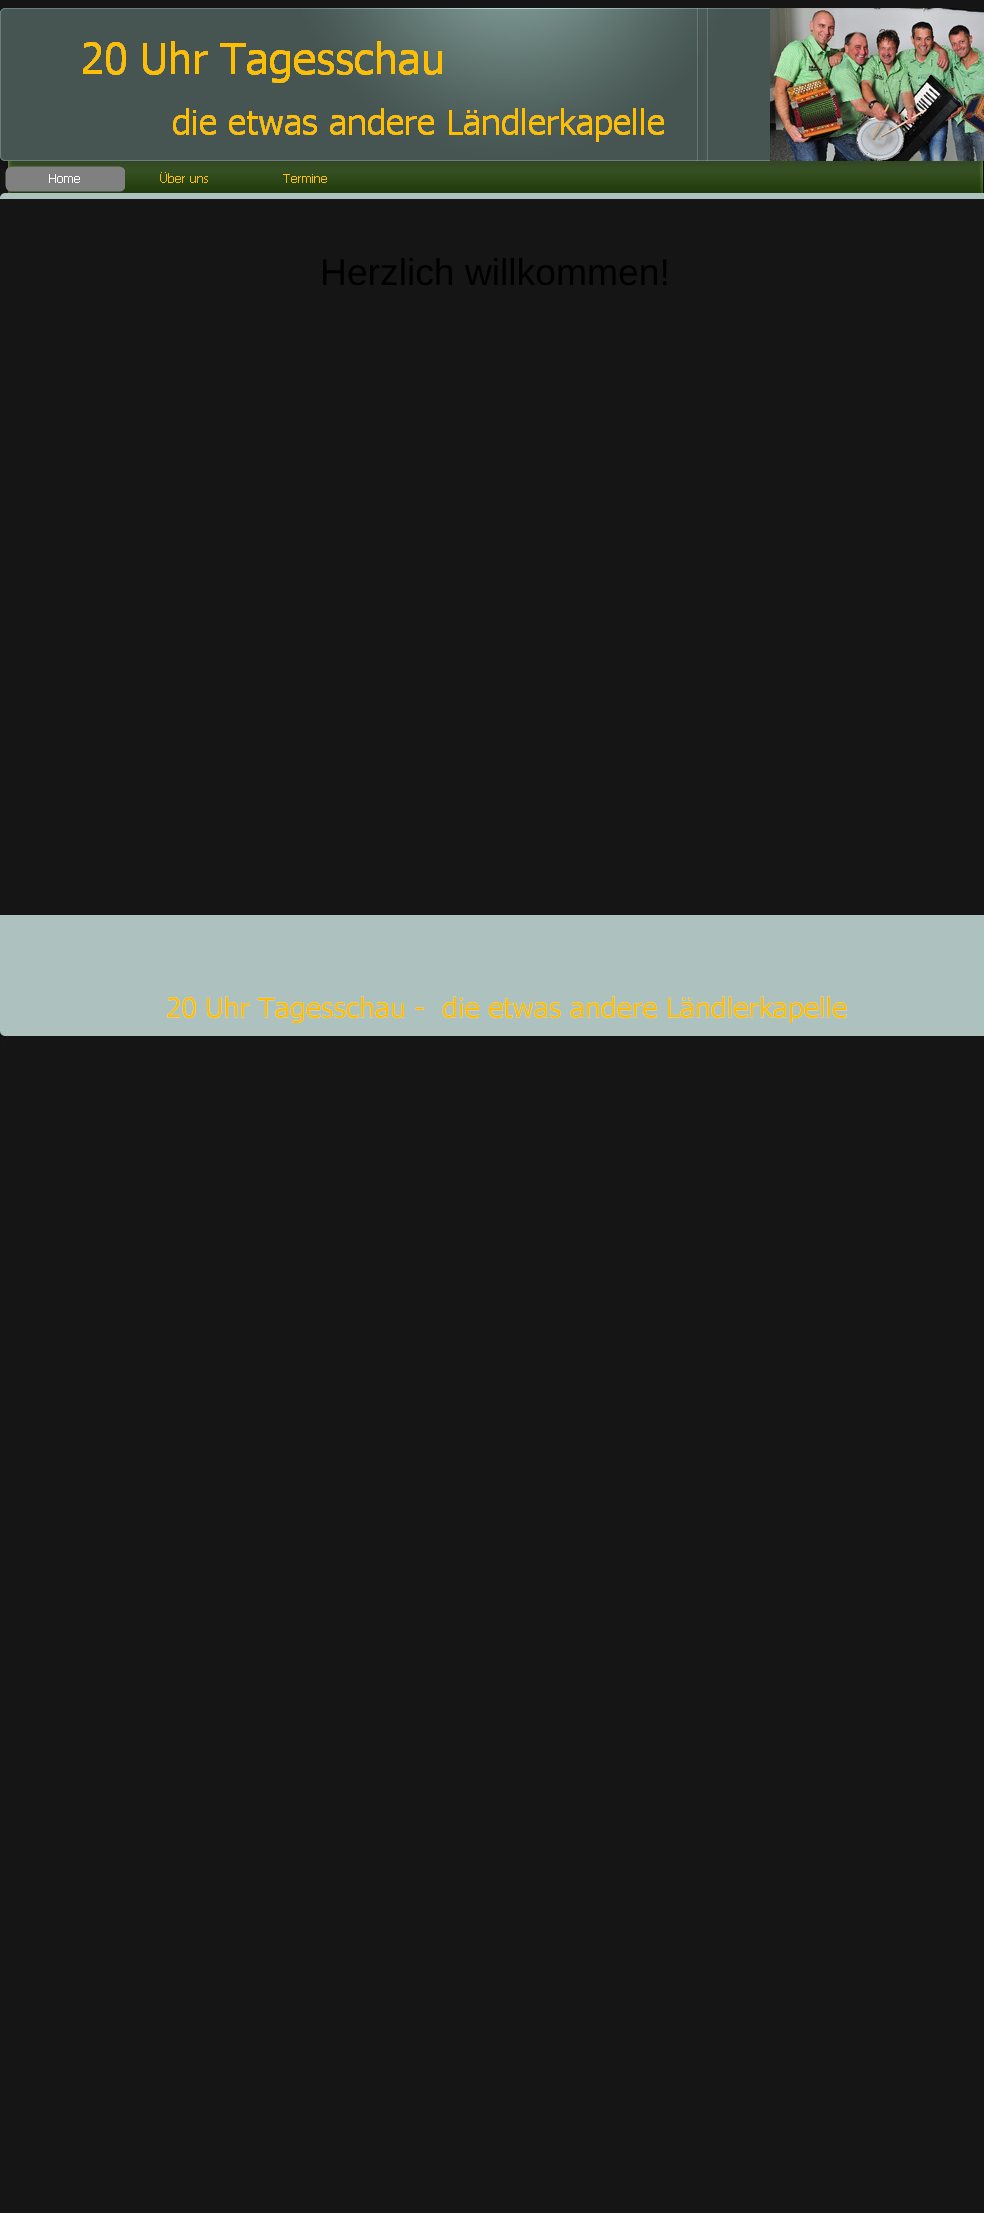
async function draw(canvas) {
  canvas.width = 984;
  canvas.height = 2213;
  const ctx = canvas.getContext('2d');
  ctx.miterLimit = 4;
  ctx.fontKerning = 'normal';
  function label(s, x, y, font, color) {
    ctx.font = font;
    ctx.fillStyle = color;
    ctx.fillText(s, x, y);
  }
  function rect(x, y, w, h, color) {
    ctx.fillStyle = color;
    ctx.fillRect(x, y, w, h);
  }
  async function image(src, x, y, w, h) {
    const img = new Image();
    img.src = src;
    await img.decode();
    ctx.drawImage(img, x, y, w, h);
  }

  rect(0, 0, 984, 2213, '#151515');
  await image('assets/img1.png', 0, 8, 984, 153);
  await image('assets/img2.png', 0, 161, 984, 38);
  await image('assets/img3.png', 5, 166, 120, 26);
  await image('assets/img4.png', 160, 172, 48, 11);
  await image('assets/img5.png', 283, 174, 44, 9);
  label('Herzlich willkommen!', 320, 285, '37.25px Liberation Sans', '#000');
  await image('assets/img6.png', 0, 915, 984, 128);
}

draw(document.querySelector('canvas'));
